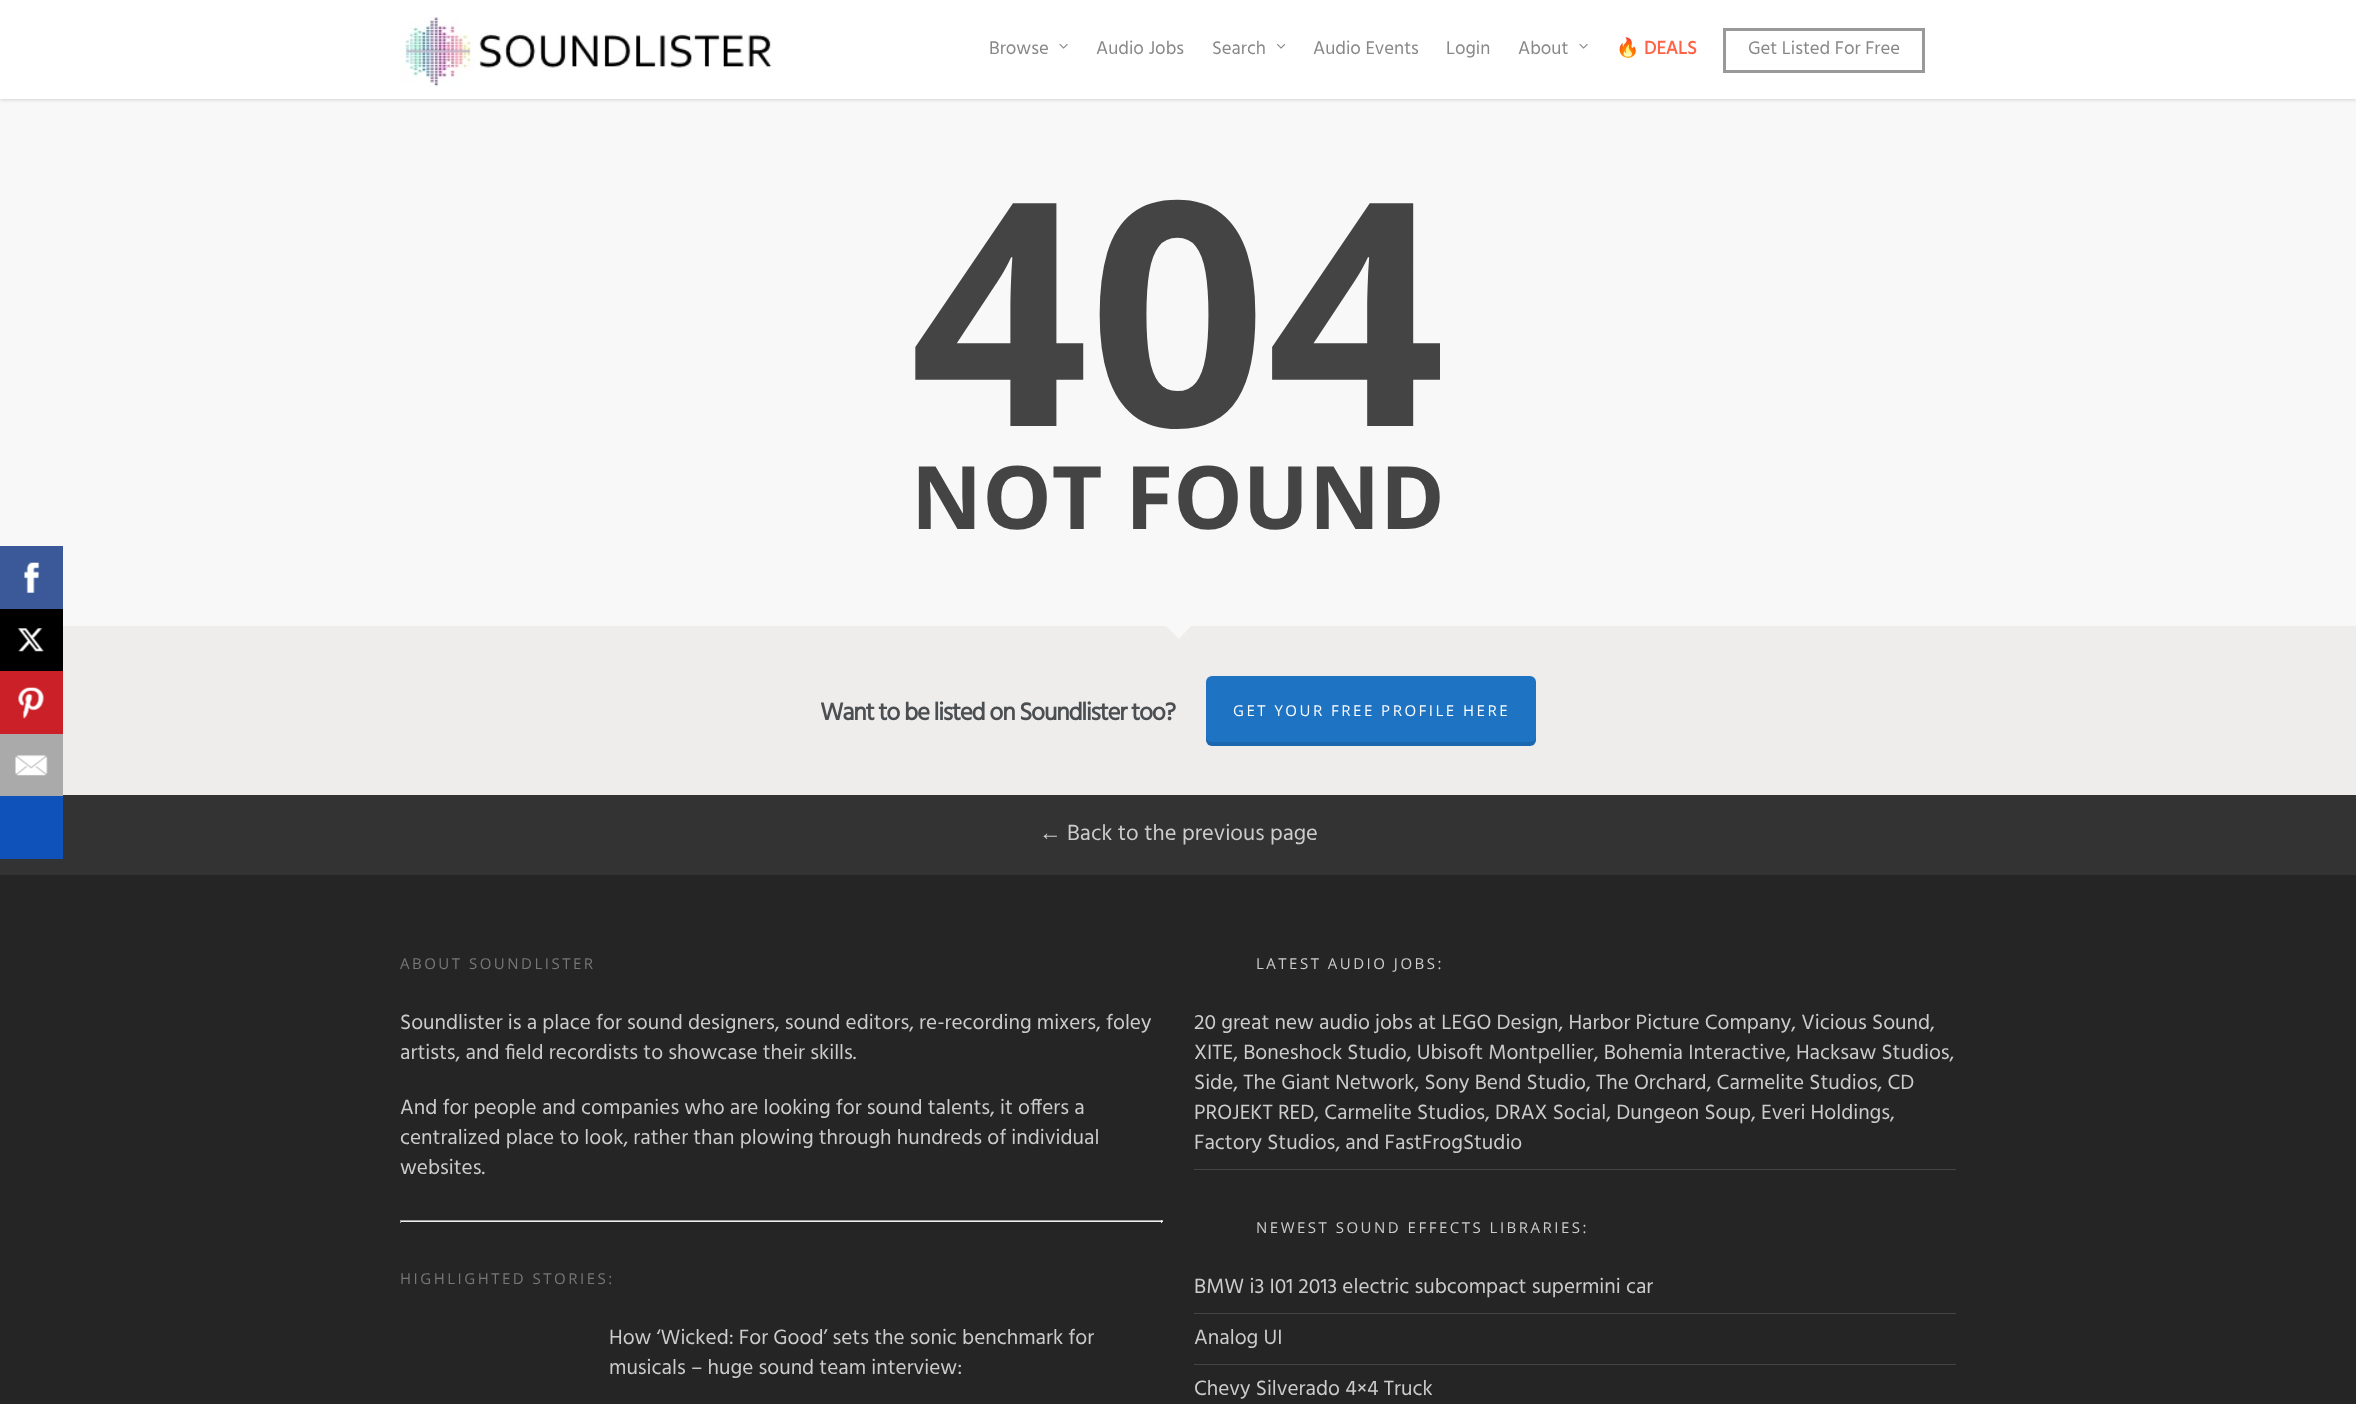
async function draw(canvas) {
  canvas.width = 2356;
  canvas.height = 1404;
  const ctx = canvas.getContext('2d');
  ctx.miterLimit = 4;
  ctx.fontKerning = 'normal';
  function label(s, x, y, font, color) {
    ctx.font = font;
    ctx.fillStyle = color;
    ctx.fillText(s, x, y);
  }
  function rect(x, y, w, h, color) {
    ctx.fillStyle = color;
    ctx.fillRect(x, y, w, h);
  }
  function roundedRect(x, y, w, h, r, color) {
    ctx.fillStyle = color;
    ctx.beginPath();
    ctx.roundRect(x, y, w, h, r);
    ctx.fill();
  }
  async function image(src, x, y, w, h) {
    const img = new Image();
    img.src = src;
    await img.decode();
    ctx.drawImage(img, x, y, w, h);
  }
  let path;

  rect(0, 0, 2356, 1404, '#f8f8f8');
  ctx.fillStyle = '#00000038';
  ctx.filter = 'blur(2px)';
  ctx.beginPath();
  ctx.rect(0, 0, 2356, 99);
  ctx.fill();
  ctx.filter = 'none';
  rect(0, 0, 2356, 99, '#fff');
  await image('assets/img1.png', 400, 17, 375, 70);
  label('Browse', 989, 54, '18.75px Hind', '#888');
  await image('assets/img2.png', 1059, 44, 9, 5);
  label('Audio Jobs', 1096, 54, '18.75px Hind', '#888');
  label('Search', 1212, 54, '18.75px Hind', '#888');
  await image('assets/img3.png', 1277, 43, 9, 6);
  label('Audio Events', 1313, 54, '18.75px Hind', '#888');
  label('Login', 1446, 54, '18.75px Hind', '#888');
  label('About', 1518, 54, '18.75px Hind', '#888');
  await image('assets/img2.png', 1579, 44, 9, 5);
  label('🔥', 1616, 54, '18.75px Noto Color Emoji', '#888');
  label('DEALS', 1644, 54, 'bold 18.75px Hind', '#ff6347');
  ctx.strokeStyle = '#999';
  ctx.lineWidth = 3;
  ctx.strokeRect(1724.5, 29.5, 199, 42);
  label('Get Listed For Free', 1748, 54, '18.75px Hind', '#888');
  rect(0, 546, 63, 63, '#3b5998');
  await image('assets/img4.png', 24, 562, 16, 31);
  rect(0, 609, 63, 62, '#000');
  await image('assets/img5.png', 17, 628, 27, 24);
  rect(0, 671, 63, 63, '#cb2027');
  await image('assets/img6.png', 18, 687, 26, 32);
  rect(0, 795, 2356, 80, '#333');
  rect(0, 734, 63, 62, '#aaa');
  await image('assets/img7.png', 15, 755, 33, 21);
  rect(0, 796, 63, 63, '#0f52ba');
  label('404', 910, 426, 'bold 312px Open Sans', '#444');
  label('NOT FOUND', 911, 529, 'bold 87.5px Open Sans', '#444');
  rect(0, 875, 2356, 529, '#252525');
  rect(63, 626, 2293, 169, '#eeedec');
  ctx.fillStyle = '#f8f8f8';
  path = new Path2D('M1166 626H1191L1179 639Z');
  ctx.fill(path);
  ctx.letterSpacing = '-1.25px';
  label('Want to be listed on Soundlister too?', 820, 720, 'bold 25px Hind', '#4b4f52');
  roundedRect(1206, 676, 330, 70, 6, '#1e73c3');
  ctx.fillStyle = '#0000001a';
  path = new Path2D('M1206 736V740C1206 743 1209 746 1212 746H1530C1533 746 1536 743 1536 740V736C1536 740 1533 742 1530 742H1212C1209 742 1206 740 1206 736Z');
  ctx.fill(path);
  ctx.letterSpacing = '2.5px';
  label('GET YOUR FREE PROFILE HERE', 1233, 716, '15px Open Sans', '#fff');
  ctx.letterSpacing = '0px';
  label('←', 1039, 840, '22.5px Liberation Serif', '#ccc');
  label('Back to the previous page', 1067, 840, '22.5px Hind', '#ccc');
  ctx.letterSpacing = '2.5px';
  label('ABOUT SOUNDLISTER', 400, 969, '15px Open Sans', '#777');
  ctx.letterSpacing = '0px';
  label('Soundlister is a place for sound designers, sound editors, re-recording mixers, foley', 400, 1029, '21.25px Hind', '#ccc');
  label('artists, and field recordists to showcase their skills.', 400, 1059, '21.25px Hind', '#ccc');
  label('And for people and companies who are looking for sound talents, it offers a', 400, 1114, '21.25px Hind', '#ccc');
  label('centralized place to look, rather than plowing through hundreds of individual', 400, 1144, '21.25px Hind', '#ccc');
  label('websites.', 400, 1174, '21.25px Hind', '#ccc');
  rect(400, 1220, 763, 1, '#9f9f9f');
  rect(1161, 1220, 1, 3, '#eee');
  rect(400, 1221, 763, 1, '#eee');
  rect(400, 1220, 1, 3, '#9f9f9f');
  ctx.letterSpacing = '2.5px';
  label('HIGHLIGHTED STORIES:', 400, 1284, '15px Open Sans', '#777');
  ctx.letterSpacing = '0px';
  label('How ‘Wicked: For Good’ sets the sonic benchmark for', 609, 1344, '21.25px Hind', '#ccc');
  label('musicals – huge sound team interview:', 609, 1374, '21.25px Hind', '#ccc');
  ctx.letterSpacing = '2.5px';
  label('LATEST AUDIO JOBS:', 1256, 969, '15px Open Sans', '#ccc');
  rect(1194, 1169, 762, 1, '#444');
  ctx.letterSpacing = '0px';
  label('20 great new audio jobs at LEGO Design, Harbor Picture Company, Vicious Sound,', 1194, 1029, '21.25px Hind', '#ccc');
  label('XITE, Boneshock Studio, Ubisoft Montpellier, Bohemia Interactive, Hacksaw Studios,', 1194, 1059, '21.25px Hind', '#ccc');
  label('Side, The Giant Network, Sony Bend Studio, The Orchard, Carmelite Studios, CD', 1194, 1089, '21.25px Hind', '#ccc');
  label('PROJEKT RED, Carmelite Studios, DRAX Social, Dungeon Soup, Everi Holdings,', 1194, 1119, '21.25px Hind', '#ccc');
  label('Factory Studios, and FastFrogStudio', 1194, 1149, '21.25px Hind', '#ccc');
  ctx.letterSpacing = '2.5px';
  label('NEWEST SOUND EFFECTS LIBRARIES:', 1256, 1233, '15px Open Sans', '#ccc');
  rect(1194, 1313, 762, 1, '#444');
  ctx.letterSpacing = '0px';
  label('BMW i3 I01 2013 electric subcompact supermini car', 1194, 1293, '21.25px Hind', '#ccc');
  rect(1194, 1364, 762, 1, '#444');
  label('Analog UI', 1194, 1344, '21.25px Hind', '#ccc');
  label('Chevy Silverado 4×4 Truck', 1194, 1395, '21.25px Hind', '#ccc');
}

draw(document.querySelector('canvas'));
